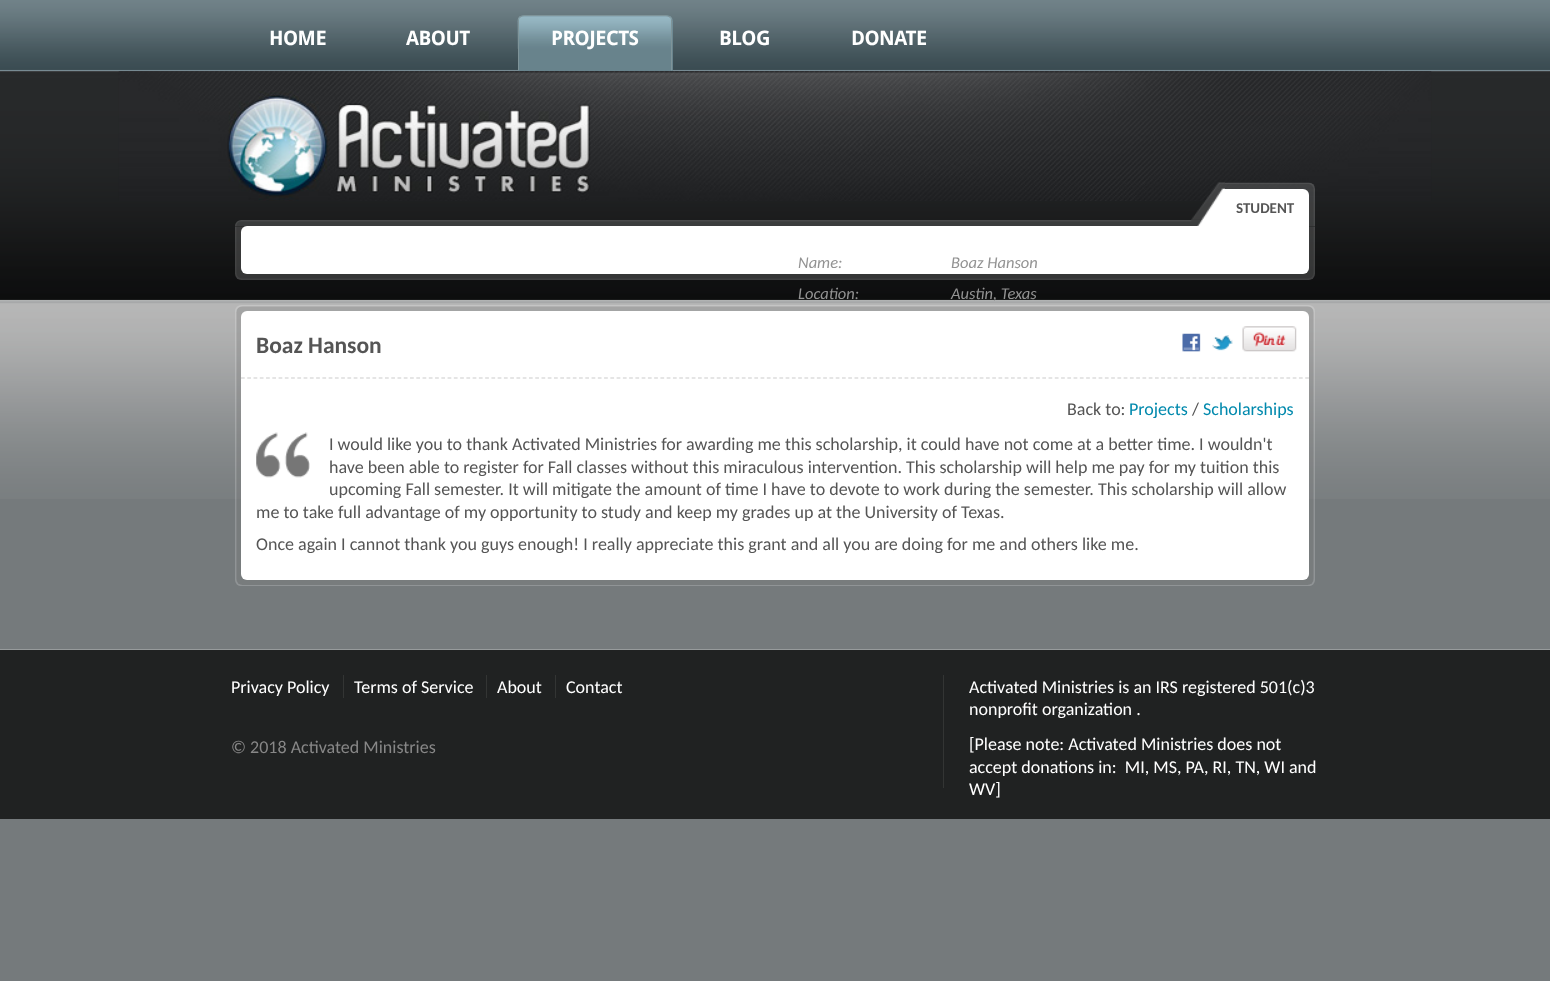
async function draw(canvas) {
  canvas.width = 1550;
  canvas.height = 981;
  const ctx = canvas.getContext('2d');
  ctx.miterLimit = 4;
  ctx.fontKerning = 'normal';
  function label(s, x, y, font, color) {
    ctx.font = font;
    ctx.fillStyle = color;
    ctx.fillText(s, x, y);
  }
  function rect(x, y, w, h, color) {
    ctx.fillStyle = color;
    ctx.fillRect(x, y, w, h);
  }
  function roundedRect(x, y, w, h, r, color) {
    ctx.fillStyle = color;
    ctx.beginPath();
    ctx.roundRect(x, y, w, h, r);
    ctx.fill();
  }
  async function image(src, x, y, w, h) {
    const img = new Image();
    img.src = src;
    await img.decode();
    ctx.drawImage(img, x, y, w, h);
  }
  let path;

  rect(0, 0, 1550, 981, '#757a7c');
  await image('assets/img1.png', 0, 0, 1550, 70);
  ctx.letterSpacing = '-0.5px';
  label('HOME', 269, 45, 'bold 20px Droid Sans', '#fff');
  label('ABOUT', 406, 45, 'bold 20px Droid Sans', '#fff');
  rect(0, 70, 1550, 1, '#778a92');
  ctx.fillStyle = '#68838c';
  ctx.beginPath();
  ctx.roundRect(518, 15, 155, 56, [6, 6, 0, 0]);
  ctx.fill();
  await image('assets/img2.png', 517, 16, 156, 33);
  ctx.fillStyle = '#7f9499';
  path = new Path2D('M524 15C522 15 520 16 519 17L520 18C521 17 522 16 524 16H666C668 16 669 17 670 18L671 17C670 16 668 15 666 15Z');
  ctx.fill(path);
  path = new Path2D('M671 17C672 18 672 20 672 21V71L671 70V21C671 20 671 18 670 18Z');
  ctx.fill(path);
  path = new Path2D('M519 17C518 18 518 20 518 21V71L519 70V21C519 20 519 18 520 18Z');
  ctx.fill(path);
  label('PROJECTS', 551, 45, 'bold 20px Droid Sans', '#fff');
  label('BLOG', 719, 45, 'bold 20px Droid Sans', '#fff');
  label('DONATE', 851, 45, 'bold 20px Droid Sans', '#fff');
  await image('assets/img3.png', 0, 71, 1550, 428);
  await image('assets/img4.png', 118, 71, 1314, 130);
  await image('assets/img5.png', 235, 226, 1080, 54);
  await image('assets/img6.png', 236, 226, 1078, 53);
  ctx.beginPath();
  ctx.roundRect(241, 226, 1068, 48, [6, 0, 6, 6]);
  ctx.fill();
  await image('assets/img7.png', 1225, 182, 90, 44);
  await image('assets/img10.png', 235, 220, 968, 6);
  await image('assets/img11.png', 236, 221, 967, 5);
  await image('assets/img8.png', 1191, 182, 34, 44);
  await image('assets/img9.png', 1225, 184, 89, 42);
  ctx.beginPath();
  ctx.roundRect(1225, 189, 84, 37, [0, 6, 0, 0]);
  ctx.fill();
  ctx.letterSpacing = '0px';
  label('STUDENT', 1236, 213, 'bold 15px Carlito', '#555');
  label('Name:', 798, 268, 'italic 16.5px Carlito', '#939393');
  label('Boaz Hanson', 951, 268, 'italic 16.5px Carlito', '#939393');
  label('Location:', 798, 299, 'italic 16.5px Carlito', '#939393');
  label('Austin, Texas', 951, 299, 'italic 16.5px Carlito', '#939393');
  await image('assets/img12.png', 235, 305, 1080, 281);
  await image('assets/img13.png', 236, 306, 1078, 279);
  roundedRect(241, 311, 1068, 269, 6, '#fff');
  path = new Path2D('M241 378H1309');
  ctx.strokeStyle = '#ccc';
  ctx.lineWidth = 1.2;
  ctx.setLineDash([3.75, 2.51]);
  ctx.stroke(path);
  label('Boaz Hanson', 256, 353, 'bold 23.5px Carlito', '#555');
  await image('assets/img14.png', 1182, 333, 19, 19);
  await image('assets/img15.png', 1212, 335, 21, 16);
  await image('assets/img16.png', 1242, 326, 55, 26);
  label('Back to:', 1067, 415, '18px Carlito', '#555');
  label('Projects', 1129, 415, '18px Carlito', '#0089ad');
  label('/', 1192, 415, '18px Carlito', '#555');
  label('Scholarships', 1203, 415, '18px Carlito', '#0089ad');
  await image('assets/img17.png', 256, 432, 54, 46);
  label('I would like you to thank Activated Ministries for awarding me this scholarship, it could have not come at a better time. I wouldn\'t', 329, 450, '18px Carlito', '#555');
  label('have been able to register for Fall classes without this miraculous intervention. This scholarship will help me pay for my tuition this', 329, 473, '18px Carlito', '#555');
  label('upcoming Fall semester. It will mitigate the amount of time I have to devote to work during the semester. This scholarship will allow', 329, 495, '18px Carlito', '#555');
  label('me to take full advantage of my opportunity to study and keep my grades up at the University of Texas.', 256, 518, '18px Carlito', '#555');
  label('Once again I cannot thank you guys enough! I really appreciate this grant and all you are doing for me and others like me.', 256, 550, '18px Carlito', '#555');
  rect(0, 650, 1550, 169, '#202222');
  rect(0, 649, 1550, 1, '#979b9c');
  label('Privacy Policy', 231, 693, '18px Carlito', '#fff');
  rect(343, 675, 1, 23, '#333534');
  label('Terms of Service', 354, 693, '18px Carlito', '#fff');
  rect(486, 675, 1, 23, '#333534');
  label('About', 497, 693, '18px Carlito', '#fff');
  rect(555, 675, 1, 23, '#333534');
  label('Contact', 566, 693, '18px Carlito', '#fff');
  rect(943, 675, 1, 113, '#333534');
  label('Activated Ministries is an IRS registered 501(c)3', 969, 693, '18px Carlito', '#fff');
  label('nonprofit organization .', 969, 715, '18px Carlito', '#fff');
  label('[Please note: Activated Ministries does not', 969, 750, '18px Carlito', '#fff');
  label('accept donations in:  MI, MS, PA, RI, TN, WI and', 969, 773, '18px Carlito', '#fff');
  label('WV]', 969, 795, '18px Carlito', '#fff');
  label('© 2018 Activated Ministries', 231, 753, '18px Carlito', '#878787');
}

draw(document.querySelector('canvas'));
